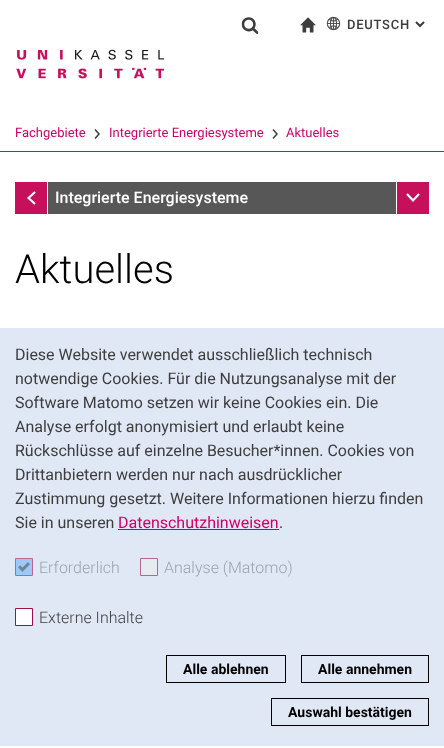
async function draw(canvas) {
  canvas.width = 444;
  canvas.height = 748;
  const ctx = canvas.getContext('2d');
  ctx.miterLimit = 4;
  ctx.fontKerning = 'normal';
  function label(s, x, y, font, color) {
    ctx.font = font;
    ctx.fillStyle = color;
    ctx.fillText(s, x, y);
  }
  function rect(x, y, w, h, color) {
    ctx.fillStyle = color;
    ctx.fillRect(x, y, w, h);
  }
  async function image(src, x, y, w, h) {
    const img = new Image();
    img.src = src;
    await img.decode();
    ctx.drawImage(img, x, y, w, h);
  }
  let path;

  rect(0, 0, 444, 748, '#fff');
  rect(0, 151, 444, 1, '#c7105c');
  await image('assets/img1.png', 241, 17, 18, 17);
  await image('assets/img2.png', 300, 17, 16, 16);
  await image('assets/img3.png', 326, 16, 15, 15);
  ctx.letterSpacing = '0.75px';
  label('DEUTSCH', 347, 29, '500 13px Roboto', '#3d3d3d');
  path = new Path2D('M424 22L420 26L416 22');
  ctx.strokeStyle = '#3d3d3d';
  ctx.lineWidth = 2;
  ctx.stroke(path);
  await image('assets/img4.png', 16, 49, 149, 30);
  ctx.letterSpacing = '0px';
  label('Fachgebiete', 15, 137, '13px Roboto', '#c06');
  path = new Path2D('M95 138.5L99 134L95 129.5');
  ctx.lineWidth = 1.5;
  ctx.stroke(path);
  label('Integrierte Energiesysteme', 109, 137, '13px Roboto', '#c06');
  path = new Path2D('M273 138.5L277 134L273 129.5');
  ctx.stroke(path);
  label('Aktuelles', 286, 137, '13px Roboto', '#c06');
  rect(48, 182, 348, 32, '#575757');
  rect(15, 182, 32, 32, '#c7105c');
  path = new Path2D('M35 192L28.5 198L35 204');
  ctx.strokeStyle = '#fff';
  ctx.lineWidth = 2.1;
  ctx.stroke(path);
  label('Integrierte Energiesysteme', 55, 203, '500 16px Roboto', '#fff');
  rect(397, 182, 32, 32, '#c7105c');
  path = new Path2D('M407 194L413 200.5L419 194');
  ctx.stroke(path);
  label('Aktuelles', 15, 283, '300 40px Roboto', '#000');
  rect(0, 328, 444, 418, '#e1e8f5');
  label('Diese Website verwendet ausschließlich technisch', 15, 360, '16px Roboto', '#3d3d3d');
  label('notwendige Cookies. Für die Nutzungsanalyse mit der', 15, 384, '16px Roboto', '#3d3d3d');
  label('Software Matomo setzen wir keine Cookies ein. Die', 15, 408, '16px Roboto', '#3d3d3d');
  label('Analyse erfolgt anonymisiert und erlaubt keine', 15, 432, '16px Roboto', '#3d3d3d');
  label('Rückschlüsse auf einzelne Besucher*innen. Cookies von', 15, 456, '16px Roboto', '#3d3d3d');
  label('Drittanbietern werden nur nach ausdrücklicher', 15, 480, '16px Roboto', '#3d3d3d');
  label('Zustimmung gesetzt. Weitere Informationen hierzu finden', 15, 504, '16px Roboto', '#3d3d3d');
  label('Sie in unseren', 15, 528, '16px Roboto', '#3d3d3d');
  label('Datenschutzhinweisen', 118, 528, '16px Roboto', '#c06');
  rect(118, 529, 161, 1, '#c06');
  label('.', 279, 528, '16px Roboto', '#3d3d3d');
  ctx.fillStyle = '#9ec8f8';
  ctx.beginPath();
  ctx.rect(15.5, 558.5, 17, 17);
  ctx.fill();
  ctx.strokeStyle = '#b7668d';
  ctx.lineWidth = 1;
  ctx.stroke();
  label('Erforderlich', 39, 573, '300 16px Roboto', '#9ba3ad');
  await image('assets/img5.png', 18, 562, 12, 10);
  ctx.fillStyle = '#e6eaf1';
  ctx.beginPath();
  ctx.rect(140.5, 558.5, 17, 17);
  ctx.fill();
  ctx.stroke();
  label('Analyse (Matomo)', 164, 573, '300 16px Roboto', '#9ba3ad');
  ctx.fillStyle = '#fff';
  ctx.beginPath();
  ctx.rect(15.5, 608.5, 17, 17);
  ctx.fill();
  ctx.strokeStyle = '#9b1047';
  ctx.stroke();
  label('Externe Inhalte', 39, 623, '300 16px Roboto', '#3d3d3d');
  ctx.strokeStyle = '#000';
  ctx.strokeRect(166.5, 655.5, 119, 27);
  label('Alle ablehnen', 183, 674, 'bold 14px Roboto', '#000');
  ctx.strokeRect(301.5, 655.5, 127, 27);
  label('Alle annehmen', 318, 674, 'bold 14px Roboto', '#000');
  ctx.strokeRect(271.5, 698.5, 157, 27);
  label('Auswahl bestätigen', 288, 717, 'bold 14px Roboto', '#000');
}

draw(document.querySelector('canvas'));
